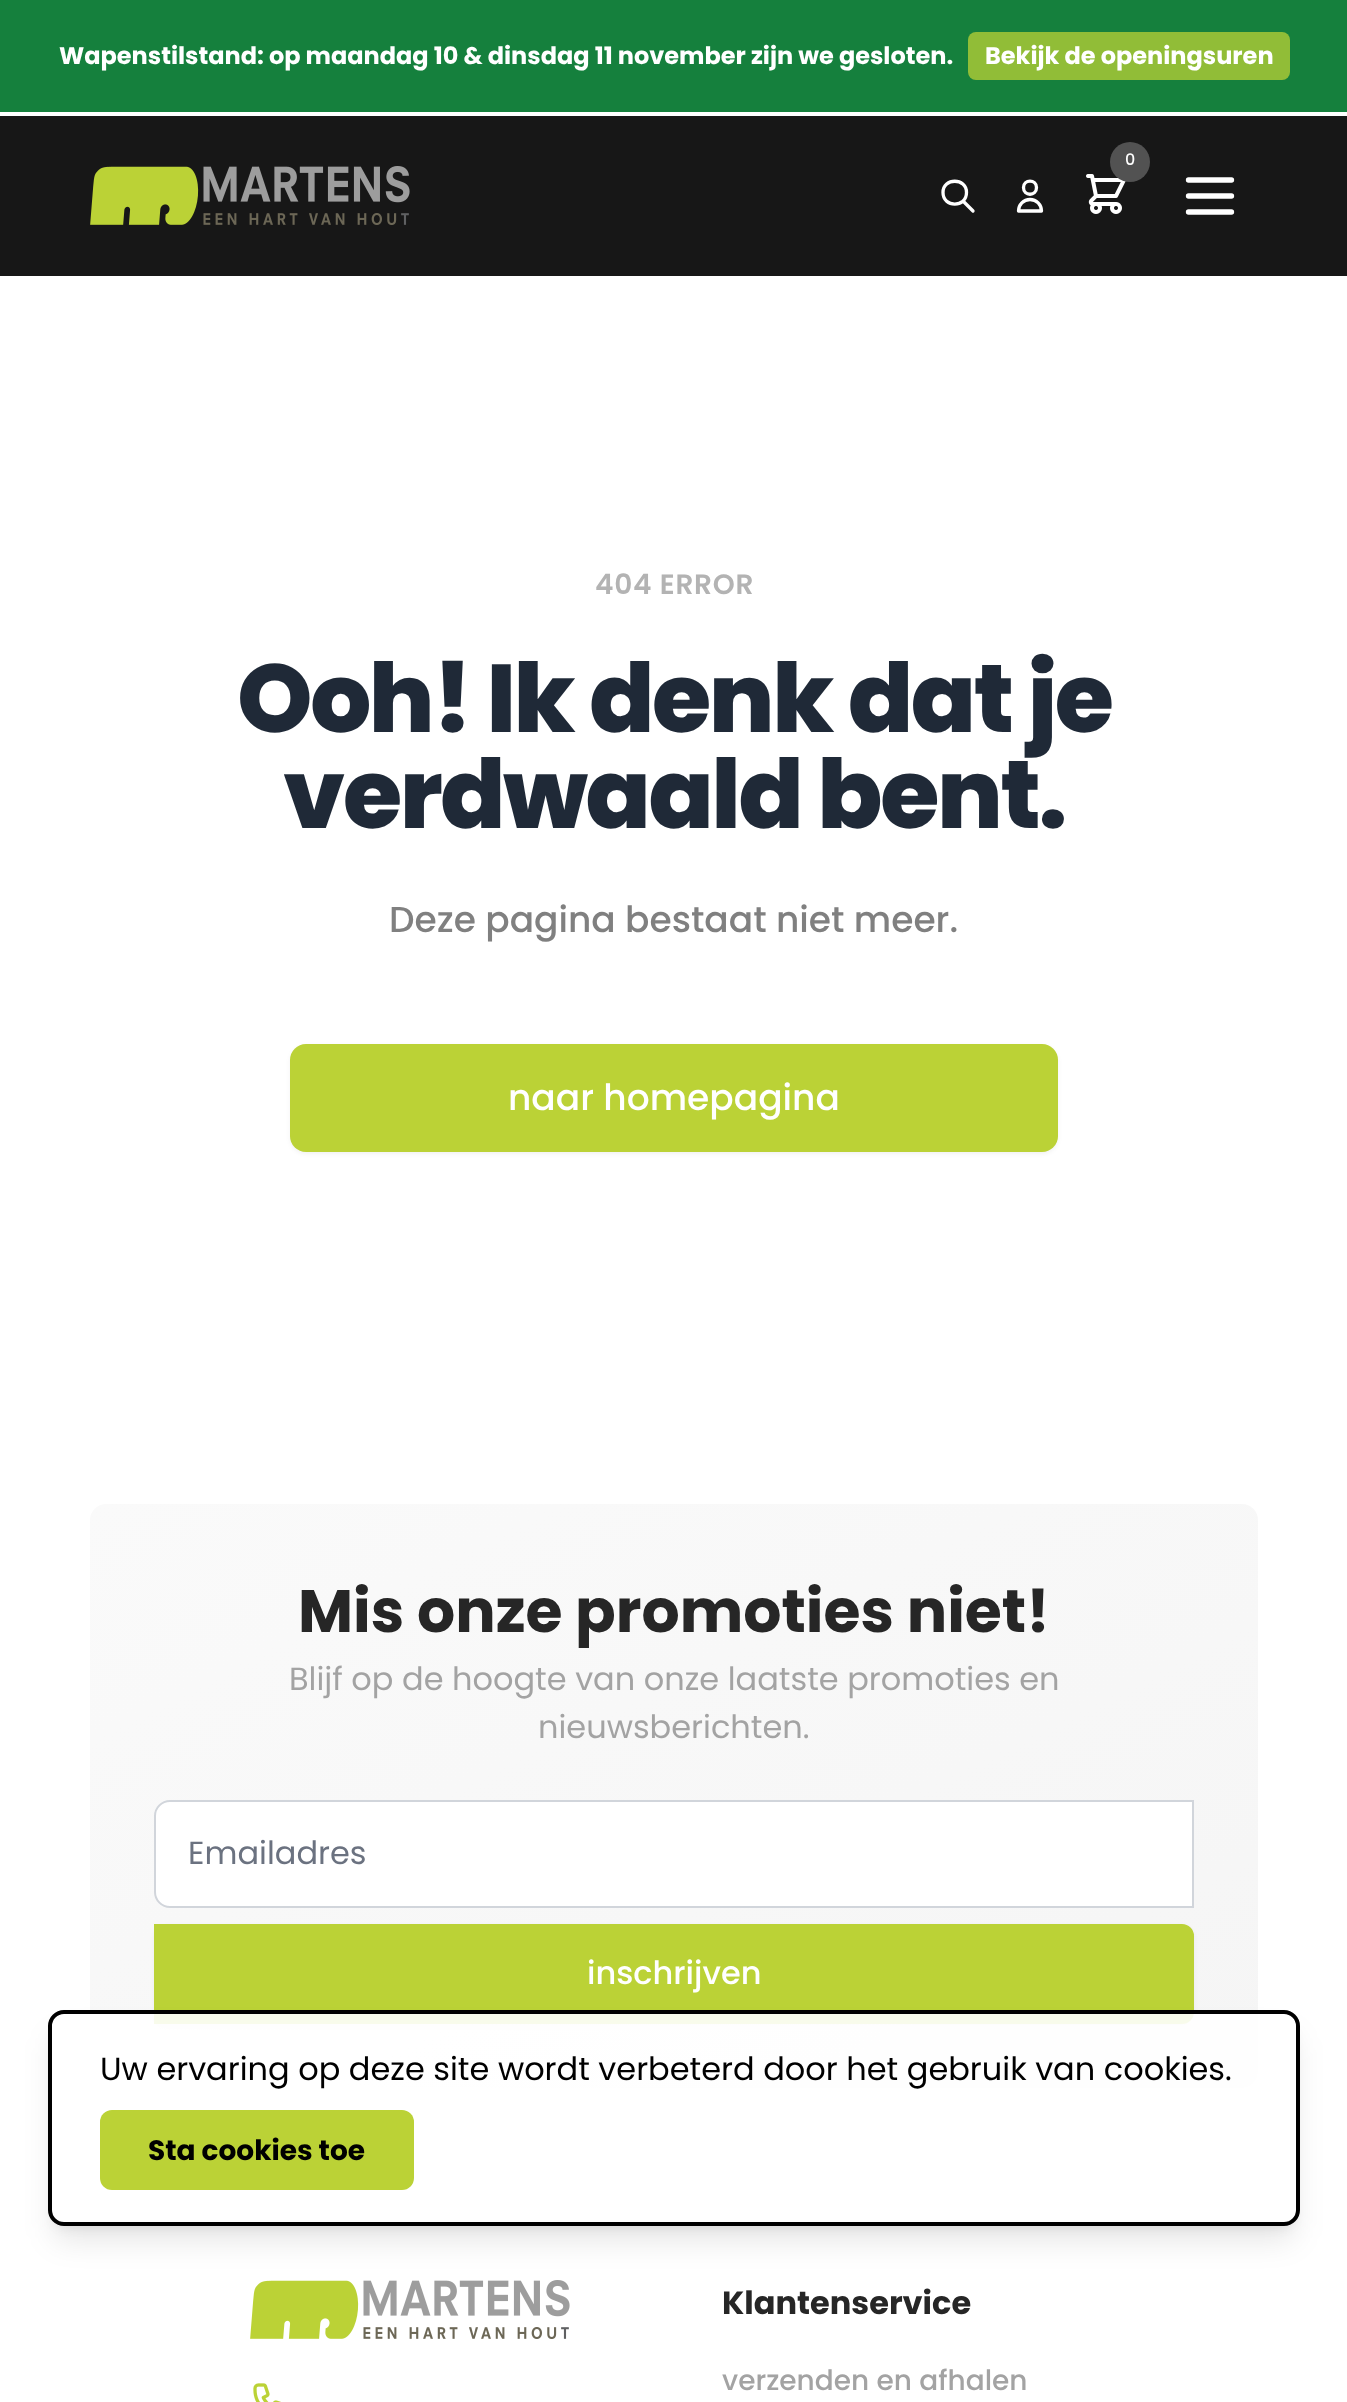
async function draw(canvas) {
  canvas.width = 1347;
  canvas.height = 2402;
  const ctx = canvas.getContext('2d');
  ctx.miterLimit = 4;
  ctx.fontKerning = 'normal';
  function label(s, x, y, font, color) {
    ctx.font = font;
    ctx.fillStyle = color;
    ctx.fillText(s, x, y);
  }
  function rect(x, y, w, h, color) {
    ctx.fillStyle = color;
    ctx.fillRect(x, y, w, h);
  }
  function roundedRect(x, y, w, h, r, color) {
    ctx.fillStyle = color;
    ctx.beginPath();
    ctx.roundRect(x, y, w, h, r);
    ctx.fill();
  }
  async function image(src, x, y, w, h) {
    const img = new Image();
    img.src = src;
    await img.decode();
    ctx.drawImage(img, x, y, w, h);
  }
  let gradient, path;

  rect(0, 0, 1347, 2402, '#fff');
  rect(0, 0, 1347, 112, '#15803d');
  label('Wapenstilstand: op maandag 10 & dinsdag 11 november zijn we gesloten.', 59, 64, 'bold 24px Poppins', '#fff');
  roundedRect(968, 32, 322, 48, 8, '#bbd236bf');
  label('Bekijk de openingsuren', 985, 64, 'bold 24px Poppins', '#fff');
  rect(0, 116, 1347, 160, '#171717');
  await image('assets/img1.png', 1086, 174, 40, 40);
  ctx.fillStyle = '#525252';
  ctx.beginPath();
  ctx.arc(1130, 162, 20, 0, 2 * Math.PI);
  ctx.fill();
  label('0', 1125, 165, '500 16px Poppins', '#fff');
  path = new Path2D('M973 211L963 201M966.5 192.5C966.5 208 943 208 943 192.5C943 177.5 966.5 177.5 966.5 192.5Z');
  ctx.strokeStyle = '#fff';
  ctx.lineWidth = 3.3;
  ctx.lineCap = 'round';
  ctx.lineJoin = 'round';
  ctx.stroke(path);
  path = new Path2D('M1036.5 187.5C1036.5 196.5 1023.5 196.5 1023.5 187.5C1023.5 179 1036.5 179 1036.5 187.5ZM1030 199.5C1023.5 199.5 1018.5 204.5 1018.5 211H1041.5C1041.5 204.5 1036.5 199.5 1030 199.5Z');
  ctx.stroke(path);
  path = new Path2D('M1188.5 180H1231.5M1188.5 196H1231.5M1188.5 212H1231.5');
  ctx.lineWidth = 5.3;
  ctx.stroke(path);
  await image('assets/img2.png', 90, 166, 320, 59);
  ctx.letterSpacing = '0.75px';
  label('404 ERROR', 595, 594, '600 28px Poppins', '#b3b3b3');
  ctx.letterSpacing = '-2.4px';
  label('Ooh! Ik denk dat je', 237, 732, '800 96px Poppins', '#1f2937');
  label('verdwaald bent.', 283, 828, '800 96px Poppins', '#1f2937');
  ctx.letterSpacing = '0px';
  label('Deze pagina bestaat niet meer.', 389, 932, '500 36px Poppins', '#808080');
  ctx.fillStyle = '#0000000d';
  ctx.filter = 'blur(2px)';
  ctx.beginPath();
  ctx.roundRect(290, 1046, 768, 108, 16);
  ctx.fill();
  ctx.filter = 'none';
  roundedRect(290, 1044, 768, 108, 16, '#bbd236');
  label('naar homepagina', 508, 1110, '500 36px Poppins', '#fff');
  gradient = ctx.createLinearGradient(440, 1329, 908, 2263);
  gradient.addColorStop(0, '#fafafa');
  gradient.addColorStop(1, '#f5f5f5');
  ctx.fillStyle = gradient;
  ctx.beginPath();
  ctx.roundRect(90, 1504, 1168, 584, 16);
  ctx.fill();
  label('Mis onze promoties niet!', 298, 1632, 'bold 60px Poppins', '#262626');
  label('Blijf op de hoogte van onze laatste promoties en', 289, 1690, '32px Poppins', '#a3a3a3');
  label('nieuwsberichten.', 538, 1738, '32px Poppins', '#a3a3a3');
  ctx.fillStyle = '#fff';
  ctx.beginPath();
  ctx.roundRect(155, 1801, 1038, 106, [15, 0, 0, 15]);
  ctx.fill();
  ctx.strokeStyle = '#d1d5db';
  ctx.lineWidth = 2;
  ctx.lineJoin = 'miter';
  ctx.stroke();
  label('Emailadres', 188, 1864, '32px Poppins', '#6b7280');
  ctx.fillStyle = '#0000000d';
  ctx.filter = 'blur(2px)';
  ctx.beginPath();
  ctx.roundRect(154, 1926, 1040, 100, 12);
  ctx.fill();
  ctx.filter = 'none';
  ctx.fillStyle = '#bbd236';
  ctx.beginPath();
  ctx.roundRect(155, 1925, 1038, 98, [0, 11, 11, 0]);
  ctx.fill();
  ctx.strokeStyle = '#bbd236';
  ctx.stroke();
  label('inschrijven', 587, 1984, '500 32px Poppins', '#fff');
  await image('assets/img3.png', 250, 2280, 320, 59);
  await image('assets/img4.png', 253, 2383, 28, 19);
  label('Klantenservice', 722, 2314, 'bold 32px Poppins', '#262626');
  label('verzenden en afhalen', 722, 2390, '500 28px Poppins', '#a3a3a3');
  ctx.save();
  path = new Path2D('M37 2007H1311V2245H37ZM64 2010H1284C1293 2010 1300 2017 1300 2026V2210C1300 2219 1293 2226 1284 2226H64C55 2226 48 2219 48 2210V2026C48 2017 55 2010 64 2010Z');
  ctx.clip(path, 'evenodd');
  ctx.fillStyle = '#0000001a';
  ctx.filter = 'blur(6px)';
  ctx.beginPath();
  ctx.roundRect(56, 2026, 1236, 200, 8);
  ctx.fill();
  ctx.filter = 'none';
  ctx.restore();
  ctx.save();
  path = new Path2D('M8 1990H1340V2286H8ZM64 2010H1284C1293 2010 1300 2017 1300 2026V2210C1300 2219 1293 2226 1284 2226H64C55 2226 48 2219 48 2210V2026C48 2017 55 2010 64 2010Z');
  ctx.clip(path, 'evenodd');
  ctx.fillStyle = '#0000001a';
  ctx.filter = 'blur(15px)';
  ctx.beginPath();
  ctx.roundRect(54, 2036, 1240, 204, 10);
  ctx.fill();
  ctx.filter = 'none';
  ctx.restore();
  ctx.fillStyle = '#ffffffe6';
  ctx.beginPath();
  ctx.roundRect(50, 2012, 1248, 212, 14);
  ctx.fill();
  ctx.strokeStyle = '#000';
  ctx.lineWidth = 4;
  ctx.stroke();
  label('Uw ervaring op deze site wordt verbeterd door het gebruik van cookies.', 100, 2080, '32px Poppins', '#000');
  roundedRect(100, 2110, 314, 80, 12, '#bbd236');
  label('Sta cookies toe', 148, 2160, 'bold 28px Poppins', '#000');
}

draw(document.querySelector('canvas'));
